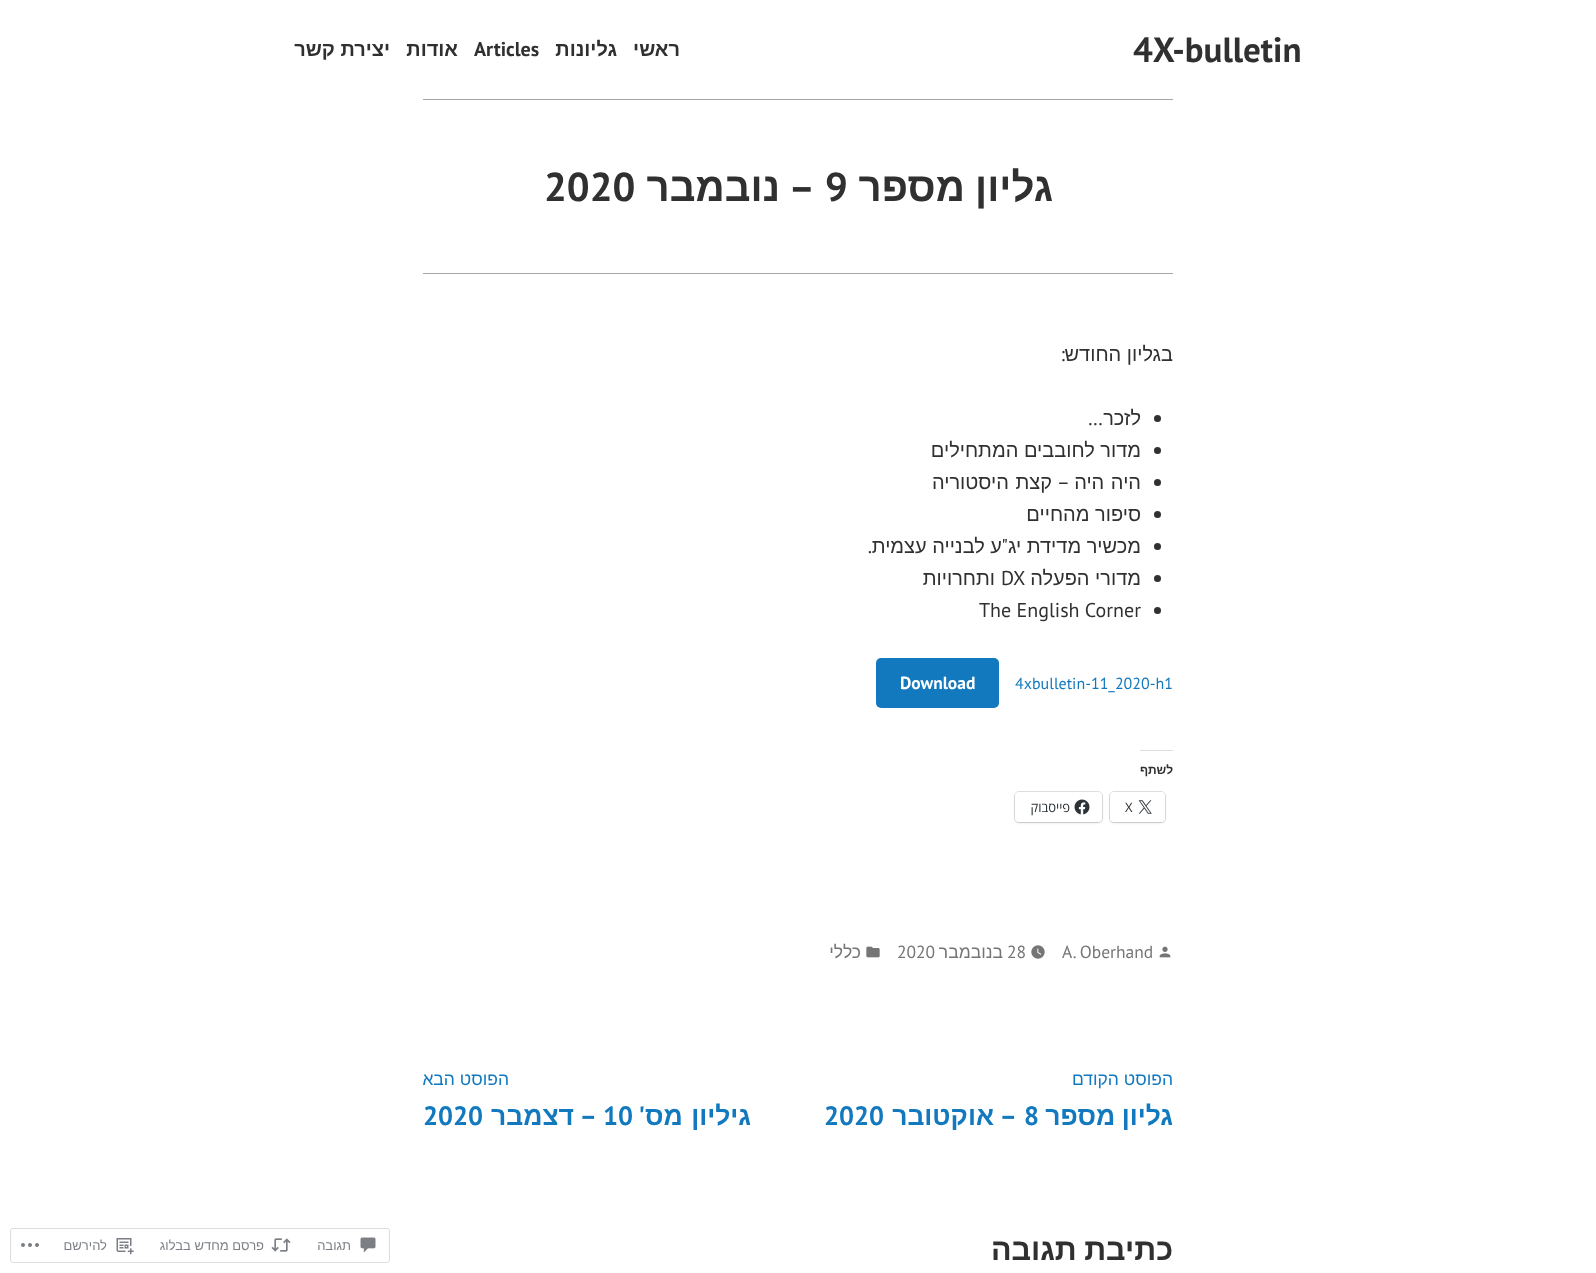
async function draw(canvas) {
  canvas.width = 1596;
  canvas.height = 1273;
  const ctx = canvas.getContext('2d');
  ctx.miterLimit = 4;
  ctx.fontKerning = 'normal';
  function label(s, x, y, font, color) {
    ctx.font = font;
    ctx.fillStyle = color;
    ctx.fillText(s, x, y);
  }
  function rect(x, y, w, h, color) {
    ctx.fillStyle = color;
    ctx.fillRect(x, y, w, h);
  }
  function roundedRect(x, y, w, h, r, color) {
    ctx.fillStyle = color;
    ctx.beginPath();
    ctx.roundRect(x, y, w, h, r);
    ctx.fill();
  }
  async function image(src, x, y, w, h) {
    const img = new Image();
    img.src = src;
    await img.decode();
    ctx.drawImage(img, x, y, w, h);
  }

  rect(0, 0, 1596, 1273, '#fff');
  label('4X-bulletin', 1133, 62, 'bold 35px PT Sans', '#303030');
  ctx.direction = 'rtl';
  label('ראשי', 680, 56, 'bold 20px Liberation Sans', '#303030');
  label('גליונות', 617, 56, 'bold 20px Liberation Sans', '#303030');
  ctx.direction = 'ltr';
  label('Articles', 474, 56, 'bold 20px PT Sans', '#303030');
  ctx.direction = 'rtl';
  label('אודות', 458, 56, 'bold 20px Liberation Sans', '#303030');
  label('יצירת קשר', 390, 56, 'bold 20px Liberation Sans', '#303030');
  rect(423, 99, 750, 1, '#a5a5a5');
  ctx.wordSpacing = '-1px';
  label('גליון מספר', 1053, 201, 'bold 40.25px Liberation Sans', '#303030');
  ctx.wordSpacing = '0px';
  ctx.direction = 'ltr';
  label('9', 825, 201, 'bold 40.25px PT Sans', '#303030');
  ctx.direction = 'rtl';
  label('–', 815, 201, 'bold 40.25px PT Sans', '#303030');
  label('נובמבר', 780, 201, 'bold 40.25px Liberation Sans', '#303030');
  ctx.direction = 'ltr';
  label('2020', 544, 201, 'bold 40.25px PT Sans', '#303030');
  rect(423, 273, 750, 1, '#a5a5a5');
  ctx.direction = 'rtl';
  label('בגליון החודש', 1173, 361, '20px Liberation Sans', '#303030');
  label(':', 1065, 361, '20px PT Sans', '#303030');
  ctx.beginPath();
  ctx.arc(1157.5, 418.5, 3.5, 0, 2 * Math.PI);
  ctx.fill();
  label('לזכר', 1141, 425, '20px Liberation Sans', '#303030');
  label('…', 1103, 425, '20px PT Sans', '#303030');
  ctx.beginPath();
  ctx.arc(1157.5, 450.5, 3.5, 0, 2 * Math.PI);
  ctx.fill();
  label('מדור לחובבים המתחילים', 1141, 457, '20px Liberation Sans', '#303030');
  ctx.beginPath();
  ctx.arc(1157.5, 482.5, 3.5, 0, 2 * Math.PI);
  ctx.fill();
  ctx.wordSpacing = '1px';
  label('היה היה', 1141, 489, '20px Liberation Sans', '#303030');
  ctx.wordSpacing = '0px';
  label('–', 1070, 489, '20px PT Sans', '#303030');
  ctx.wordSpacing = '1px';
  label('קצת היסטוריה', 1052, 489, '20px Liberation Sans', '#303030');
  ctx.beginPath();
  ctx.arc(1157.5, 514.5, 3.5, 0, 2 * Math.PI);
  ctx.fill();
  ctx.wordSpacing = '0px';
  label('סיפור מהחיים', 1141, 521, '20px Liberation Sans', '#303030');
  ctx.beginPath();
  ctx.arc(1157.5, 546.5, 3.5, 0, 2 * Math.PI);
  ctx.fill();
  label('מכשיר מדידת יג', 1141, 553, '20px Liberation Sans', '#303030');
  label('"', 1008, 553, '20px PT Sans', '#303030');
  label('ע לבנייה עצמית', 1002, 553, '20px Liberation Sans', '#303030');
  label('.', 872, 553, '20px PT Sans', '#303030');
  ctx.beginPath();
  ctx.arc(1157.5, 578.5, 3.5, 0, 2 * Math.PI);
  ctx.fill();
  label('מדורי הפעלה', 1141, 585, '20px Liberation Sans', '#303030');
  ctx.direction = 'ltr';
  label('DX', 1001, 585, '20px PT Sans', '#303030');
  ctx.direction = 'rtl';
  label('ותחרויות', 995, 585, '20px Liberation Sans', '#303030');
  ctx.beginPath();
  ctx.arc(1157.5, 610.5, 3.5, 0, 2 * Math.PI);
  ctx.fill();
  ctx.direction = 'ltr';
  label('The English Corner', 979, 617, '20px PT Sans', '#303030');
  label('4xbulletin-11_2020-h1', 1015, 689, '16px PT Sans', '#1279be');
  roundedRect(876, 658, 123, 50, 5, '#1279be');
  label('Download', 900, 689, 'bold 17.5px PT Sans', '#fff');
  rect(1140, 750, 33, 1, '#dcdcde');
  ctx.direction = 'rtl';
  label('לשתף', 1173, 774, 'bold 12px Liberation Sans', '#303030');
  ctx.beginPath();
  ctx.roundRect(1109.5, 791.5, 56, 31, 4.5);
  ctx.strokeStyle = '#e0e0e0';
  ctx.stroke();
  ctx.fillStyle = '#0000001f';
  ctx.filter = 'blur(1px)';
  ctx.beginPath();
  ctx.roundRect(1110, 793, 55, 30, 4);
  ctx.fill();
  ctx.filter = 'none';
  roundedRect(1110, 792, 55, 30, 4, '#fff');
  await image('assets/img1.png', 1138, 800, 14, 14);
  ctx.direction = 'ltr';
  label('X', 1125, 812, '13px Open Sans', '#2c3338');
  ctx.beginPath();
  ctx.roundRect(1014.5, 791.5, 88, 31, 4.5);
  ctx.stroke();
  ctx.fillStyle = '#0000001f';
  ctx.filter = 'blur(1px)';
  ctx.beginPath();
  ctx.roundRect(1015, 793, 87, 30, 4);
  ctx.fill();
  ctx.filter = 'none';
  roundedRect(1015, 792, 87, 30, 4, '#fff');
  await image('assets/img2.png', 1074, 799, 16, 16);
  ctx.direction = 'rtl';
  label('פייסבוק', 1070, 812, '13px Open Sans', '#2c3338');
  await image('assets/img3.png', 1159, 946, 12, 12);
  ctx.direction = 'ltr';
  label('A. Oberhand', 1062, 958, '17.5px PT Sans', '#757575');
  await image('assets/img4.png', 1031, 945, 14, 14);
  label('28', 1007, 958, '17.5px PT Sans', '#757575');
  ctx.direction = 'rtl';
  label('בנובמבר', 1003, 958, '17.5px Liberation Sans', '#757575');
  ctx.direction = 'ltr';
  label('2020', 897, 958, '17.5px PT Sans', '#757575');
  await image('assets/img5.png', 866, 946, 14, 12);
  ctx.direction = 'rtl';
  label('כללי', 861, 958, '17.5px Liberation Sans', '#757575');
  label('הפוסט הקודם', 1173, 1085, '17.5px Liberation Sans', '#1279be');
  ctx.wordSpacing = '-1px';
  label('גליון מספר', 1173, 1125, 'bold 26.5px Liberation Sans', '#1279be');
  ctx.wordSpacing = '0px';
  ctx.direction = 'ltr';
  label('8', 1024, 1125, 'bold 26.5px PT Sans', '#1279be');
  ctx.direction = 'rtl';
  label('–', 1017, 1125, 'bold 26.5px PT Sans', '#1279be');
  label('אוקטובר', 994, 1125, 'bold 26.5px Liberation Sans', '#1279be');
  ctx.direction = 'ltr';
  label('2020', 824, 1125, 'bold 26.5px PT Sans', '#1279be');
  ctx.direction = 'rtl';
  label('הפוסט הבא', 509, 1085, '17.5px Liberation Sans', '#1279be');
  label('\'', 645, 1125, 'bold 26.5px PT Sans', '#1279be');
  ctx.wordSpacing = '1px';
  label('גיליון מס', 751, 1125, 'bold 26.5px Liberation Sans', '#1279be');
  ctx.wordSpacing = '0px';
  ctx.direction = 'ltr';
  label('10', 603, 1125, 'bold 26.5px PT Sans', '#1279be');
  label('2020', 423, 1125, 'bold 26.5px PT Sans', '#1279be');
  ctx.direction = 'rtl';
  label('–', 597, 1125, 'bold 26.5px PT Sans', '#1279be');
  label('דצמבר', 574, 1125, 'bold 26.5px Liberation Sans', '#1279be');
  ctx.wordSpacing = '-1px';
  label('כתיבת תגובה', 1173, 1260, 'bold 30.5px Liberation Sans', '#303030');
  ctx.beginPath();
  ctx.roundRect(10.5, 1228.5, 379, 34, 2.5);
  ctx.strokeStyle = '#dddddf';
  ctx.stroke();
  await image('assets/img6.png', 360, 1237, 16, 16);
  ctx.wordSpacing = '0px';
  label('תגובה', 351, 1250, '13px Liberation Sans', '#7b7f85');
  await image('assets/img7.png', 271, 1238, 20, 14);
  label('פרסם מחדש בבלוג', 264, 1250, '13px Liberation Sans', '#7b7f85');
  await image('assets/img8.png', 116, 1238, 18, 17);
  label('להירשם', 107, 1250, '13px Liberation Sans', '#7b7f85');
  await image('assets/img9.png', 21, 1243, 18, 4);
}

draw(document.querySelector('canvas'));
